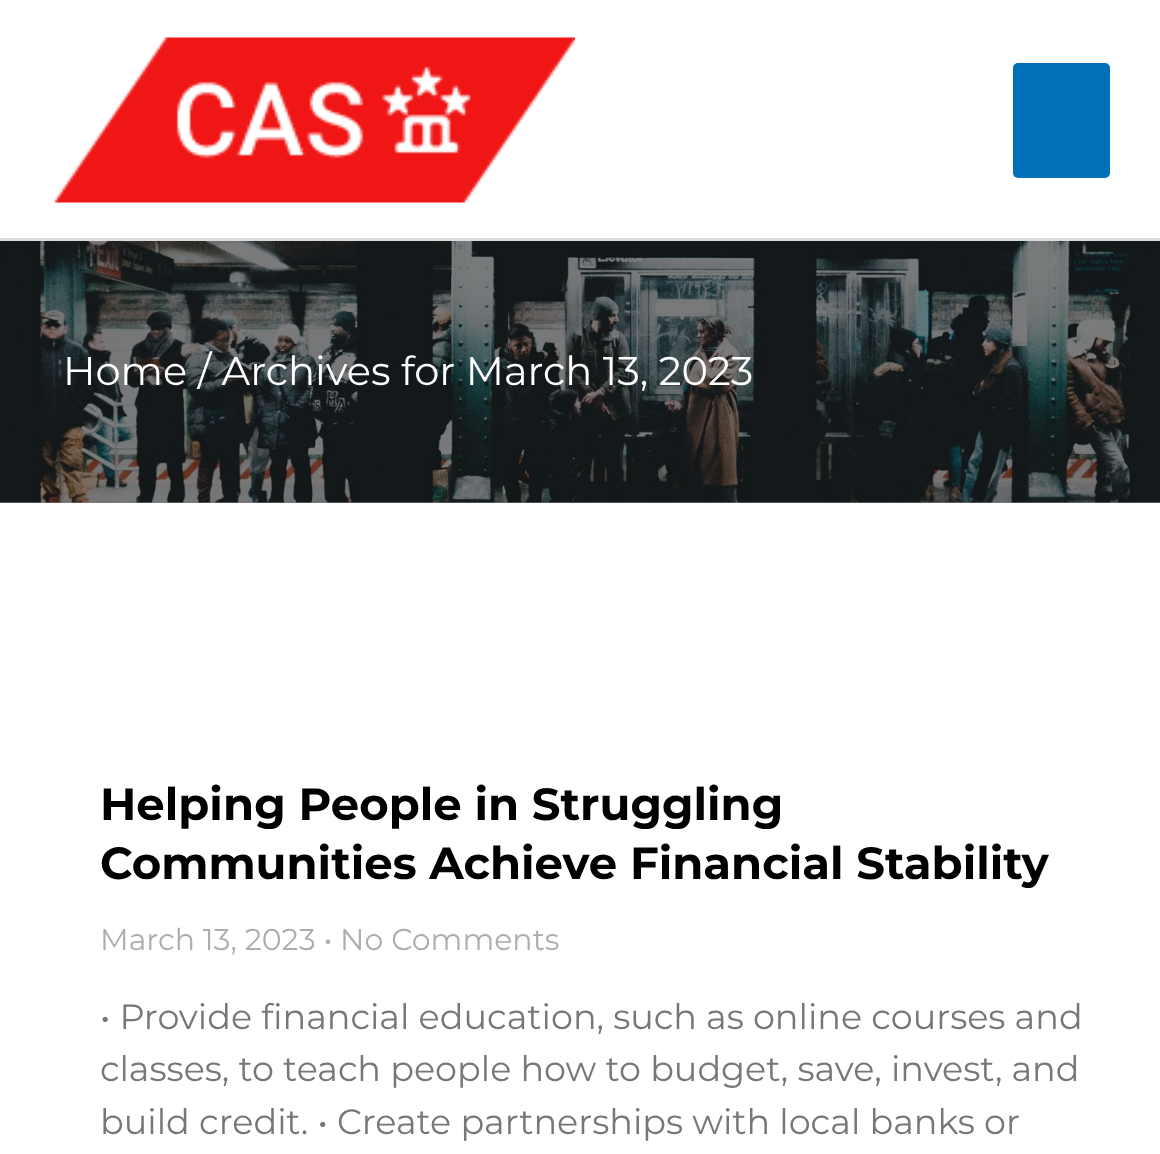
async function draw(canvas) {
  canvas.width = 1160;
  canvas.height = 1154;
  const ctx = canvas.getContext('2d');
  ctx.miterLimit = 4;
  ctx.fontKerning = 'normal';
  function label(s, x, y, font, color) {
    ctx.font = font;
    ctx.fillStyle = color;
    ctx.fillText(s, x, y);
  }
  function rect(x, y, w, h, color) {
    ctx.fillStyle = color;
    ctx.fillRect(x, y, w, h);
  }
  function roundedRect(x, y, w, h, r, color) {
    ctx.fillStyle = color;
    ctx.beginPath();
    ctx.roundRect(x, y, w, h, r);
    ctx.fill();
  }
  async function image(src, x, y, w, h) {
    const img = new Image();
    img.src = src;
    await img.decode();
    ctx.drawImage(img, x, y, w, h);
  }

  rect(0, 0, 1160, 1154, '#fff');
  rect(0, 502, 1160, 1, '#868686');
  rect(0, 238, 1160, 3, '#ddd');
  await image('assets/img1.png', 54, 37, 521, 166);
  roundedRect(1013, 63, 97, 115, 5, '#0170b9');
  await image('assets/img2.png', 0, 241, 1160, 262);
  label('Home / Archives for March 13, 2023', 63, 385, '40px Montserrat', '#fff');
  label('Helping People in Struggling', 100, 820, 'bold 45px Montserrat', '#000');
  label('Communities Achieve Financial Stability', 100, 879, 'bold 45px Montserrat', '#000');
  label('March 13, 2023 • No Comments', 100, 950, '30px Montserrat', '#adadad');
  label('• Provide financial education, such as online courses and', 100, 1029, '35px Montserrat', '#777');
  label('classes, to teach people how to budget, save, invest, and', 100, 1081, '35px Montserrat', '#777');
  label('build credit. • Create partnerships with local banks or', 100, 1134, '35px Montserrat', '#777');
}

draw(document.querySelector('canvas'));
